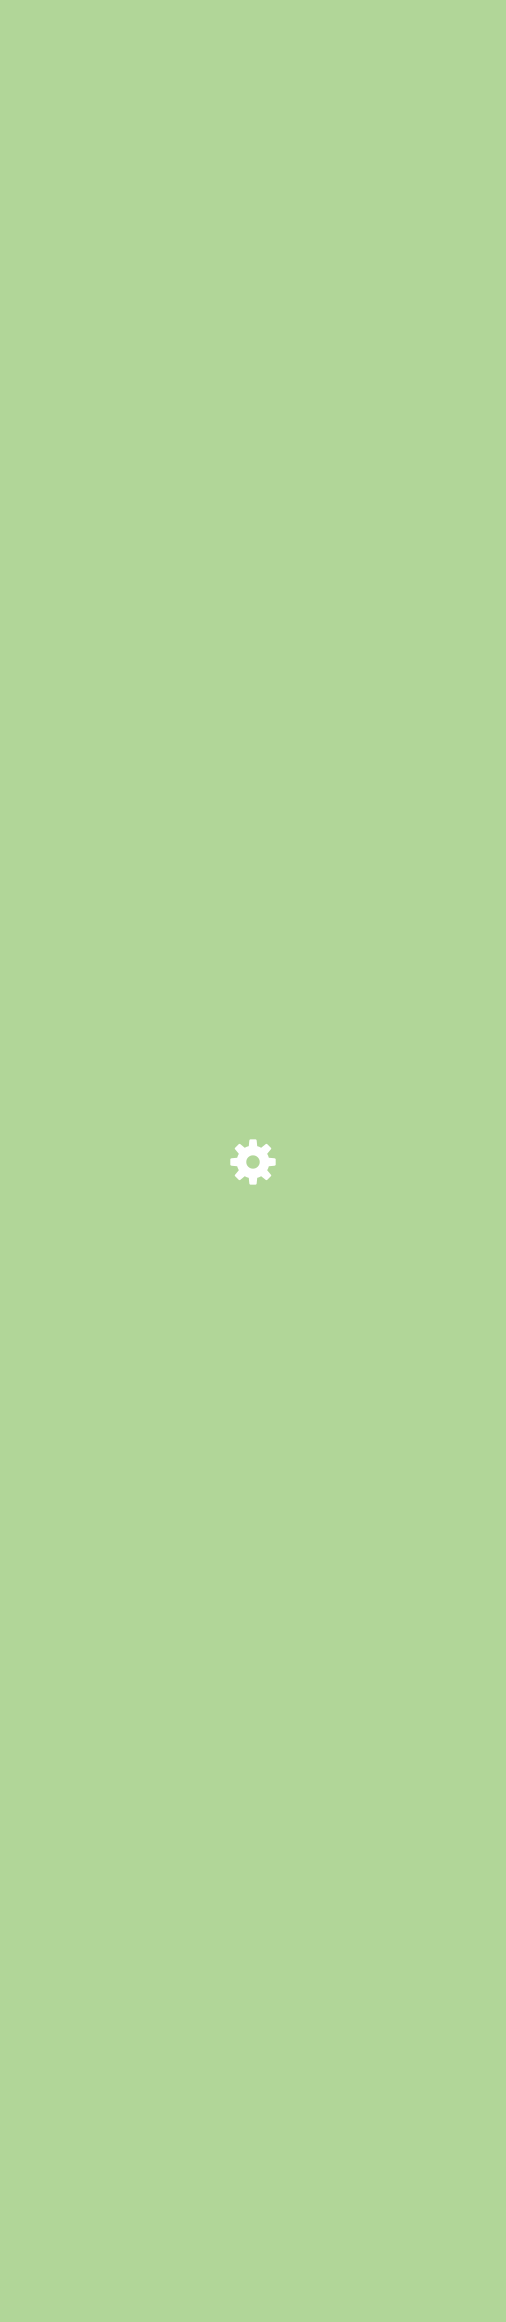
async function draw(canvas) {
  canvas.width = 506;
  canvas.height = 2322;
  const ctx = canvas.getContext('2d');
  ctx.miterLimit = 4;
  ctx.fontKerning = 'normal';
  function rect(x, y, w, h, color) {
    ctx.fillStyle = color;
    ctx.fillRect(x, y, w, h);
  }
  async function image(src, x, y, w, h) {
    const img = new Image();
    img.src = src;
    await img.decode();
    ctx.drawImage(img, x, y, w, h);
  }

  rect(0, 0, 506, 2322, '#b1d698');
  await image('assets/img1.png', 230, 1139, 46, 46);
}

draw(document.querySelector('canvas'));
